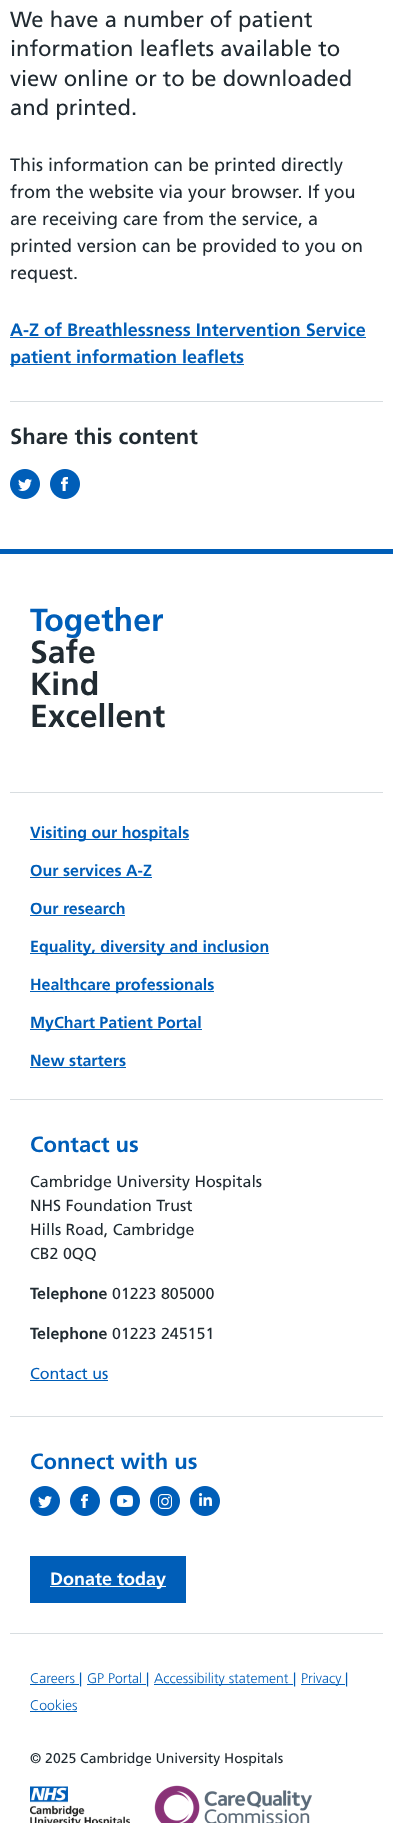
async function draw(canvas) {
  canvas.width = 393;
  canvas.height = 1823;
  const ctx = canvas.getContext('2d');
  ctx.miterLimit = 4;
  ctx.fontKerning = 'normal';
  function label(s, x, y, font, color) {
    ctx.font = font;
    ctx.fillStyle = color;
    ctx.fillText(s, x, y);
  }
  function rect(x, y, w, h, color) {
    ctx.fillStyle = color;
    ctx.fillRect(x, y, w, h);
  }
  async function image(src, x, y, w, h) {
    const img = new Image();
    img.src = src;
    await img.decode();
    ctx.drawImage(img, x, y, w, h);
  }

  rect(0, 0, 393, 1823, '#fff');
  label('We have a number of patient', 10, 27, '22px Frutiger', '#212b32');
  label('information leaflets available to', 10, 56, '22px Frutiger', '#212b32');
  label('view online or to be downloaded', 10, 86, '22px Frutiger', '#212b32');
  label('and printed.', 10, 115, '22px Frutiger', '#212b32');
  label('This information can be printed directly', 10, 171, '18px Frutiger', '#212b32');
  label('from the website via your browser. If you', 10, 198, '18px Frutiger', '#212b32');
  label('are receiving care from the service, a', 10, 225, '18px Frutiger', '#212b32');
  label('printed version can be provided to you on', 10, 252, '18px Frutiger', '#212b32');
  label('request.', 10, 279, '18px Frutiger', '#212b32');
  label('A-Z of Breathlessness Intervention Service', 10, 336, 'bold 18px Frutiger', '#005eb8');
  rect(10, 337, 356, 1, '#005eb8');
  rect(10, 364, 234, 1, '#005eb8');
  label('patient information leaflets', 10, 363, 'bold 18px Frutiger', '#005eb8');
  rect(10, 401, 373, 1, '#d8dde0');
  label('Share this content', 10, 444, 'bold 22px Frutiger', '#212b32');
  await image('assets/img1.png', 10, 469, 30, 30);
  await image('assets/img2.png', 50, 469, 30, 30);
  rect(0, 549, 393, 5, '#005eb8');
  rect(10, 792, 373, 1, '#d8dde0');
  label('Together', 30, 631, 'bold 32px Frutiger', '#005eb8');
  label('Safe', 30, 663, 'bold 32px Frutiger', '#212b32');
  label('Kind', 30, 695, 'bold 32px Frutiger', '#212b32');
  label('Excellent', 30, 727, 'bold 32px Frutiger', '#212b32');
  rect(10, 1099, 373, 1, '#d8dde0');
  rect(30, 839, 159, 1, '#005eb8');
  label('Visiting our hospitals', 30, 838, 'bold 16px Frutiger', '#005eb8');
  label('Our services A-Z', 30, 876, 'bold 16px Frutiger', '#005eb8');
  rect(30, 877, 122, 1, '#005eb8');
  label('Our research', 30, 914, 'bold 16px Frutiger', '#005eb8');
  rect(30, 915, 95, 1, '#005eb8');
  rect(30, 953, 239, 1, '#005eb8');
  label('Equality, diversity and inclusion', 30, 952, 'bold 16px Frutiger', '#005eb8');
  rect(30, 991, 184, 1, '#005eb8');
  label('Healthcare professionals', 30, 990, 'bold 16px Frutiger', '#005eb8');
  rect(30, 1029, 172, 1, '#005eb8');
  label('MyChart Patient Portal', 30, 1028, 'bold 16px Frutiger', '#005eb8');
  label('New starters', 30, 1066, 'bold 16px Frutiger', '#005eb8');
  rect(30, 1067, 96, 1, '#005eb8');
  rect(10, 1416, 373, 1, '#d8dde0');
  label('Contact us', 30, 1152, 'bold 22px Frutiger', '#005eb8');
  label('Cambridge University Hospitals', 30, 1187, '16px Frutiger', '#212b32');
  label('NHS Foundation Trust', 30, 1211, '16px Frutiger', '#212b32');
  label('Hills Road, Cambridge', 30, 1235, '16px Frutiger', '#212b32');
  label('CB2 0QQ', 30, 1259, '16px Frutiger', '#212b32');
  label('Telephone', 30, 1299, 'bold 16px Frutiger', '#212b32');
  label('01223 805000', 112, 1299, '16px Frutiger', '#212b32');
  label('Telephone', 30, 1339, 'bold 16px Frutiger', '#212b32');
  label('01223 245151', 112, 1339, '16px Frutiger', '#212b32');
  label('Contact us', 30, 1379, '16px Frutiger', '#005eb8');
  rect(30, 1380, 78, 1, '#005eb8');
  rect(10, 1633, 373, 1, '#d8dde0');
  label('Connect with us', 30, 1469, 'bold 22px Frutiger', '#005eb8');
  await image('assets/img1.png', 30, 1486, 30, 30);
  await image('assets/img2.png', 70, 1486, 30, 30);
  await image('assets/img3.png', 110, 1486, 30, 30);
  await image('assets/img4.png', 150, 1486, 30, 30);
  await image('assets/img5.png', 190, 1486, 30, 30);
  rect(30, 1556, 156, 47, '#005eb8');
  rect(50, 1586, 116, 1, '#fff');
  label('Donate today', 50, 1585, 'bold 18px Frutiger', '#fff');
  label('Careers', 30, 1683, '300 14px Frutiger', '#005eb8');
  rect(30, 1684, 49, 1, '#005eb8');
  label('|', 79, 1683, '14px Frutiger', '#005eb8');
  label('GP Portal', 87, 1683, '300 14px Frutiger', '#005eb8');
  rect(87, 1684, 59, 1, '#005eb8');
  label('|', 146, 1683, '14px Frutiger', '#005eb8');
  rect(154, 1684, 139, 1, '#005eb8');
  label('Accessibility statement', 154, 1683, '300 14px Frutiger', '#005eb8');
  label('|', 293, 1683, '14px Frutiger', '#005eb8');
  rect(301, 1684, 44, 1, '#005eb8');
  label('Privacy', 301, 1683, '300 14px Frutiger', '#005eb8');
  label('|', 345, 1683, '14px Frutiger', '#005eb8');
  label('Cookies', 30, 1710, '300 14px Frutiger', '#005eb8');
  rect(30, 1711, 47, 1, '#005eb8');
  label('© 2025 Cambridge University Hospitals', 30, 1763, '14px Frutiger', '#212b32');
  await image('assets/img6.png', 30, 1786, 100, 37);
  await image('assets/img7.png', 154, 1785, 158, 38);
}

draw(document.querySelector('canvas'));
